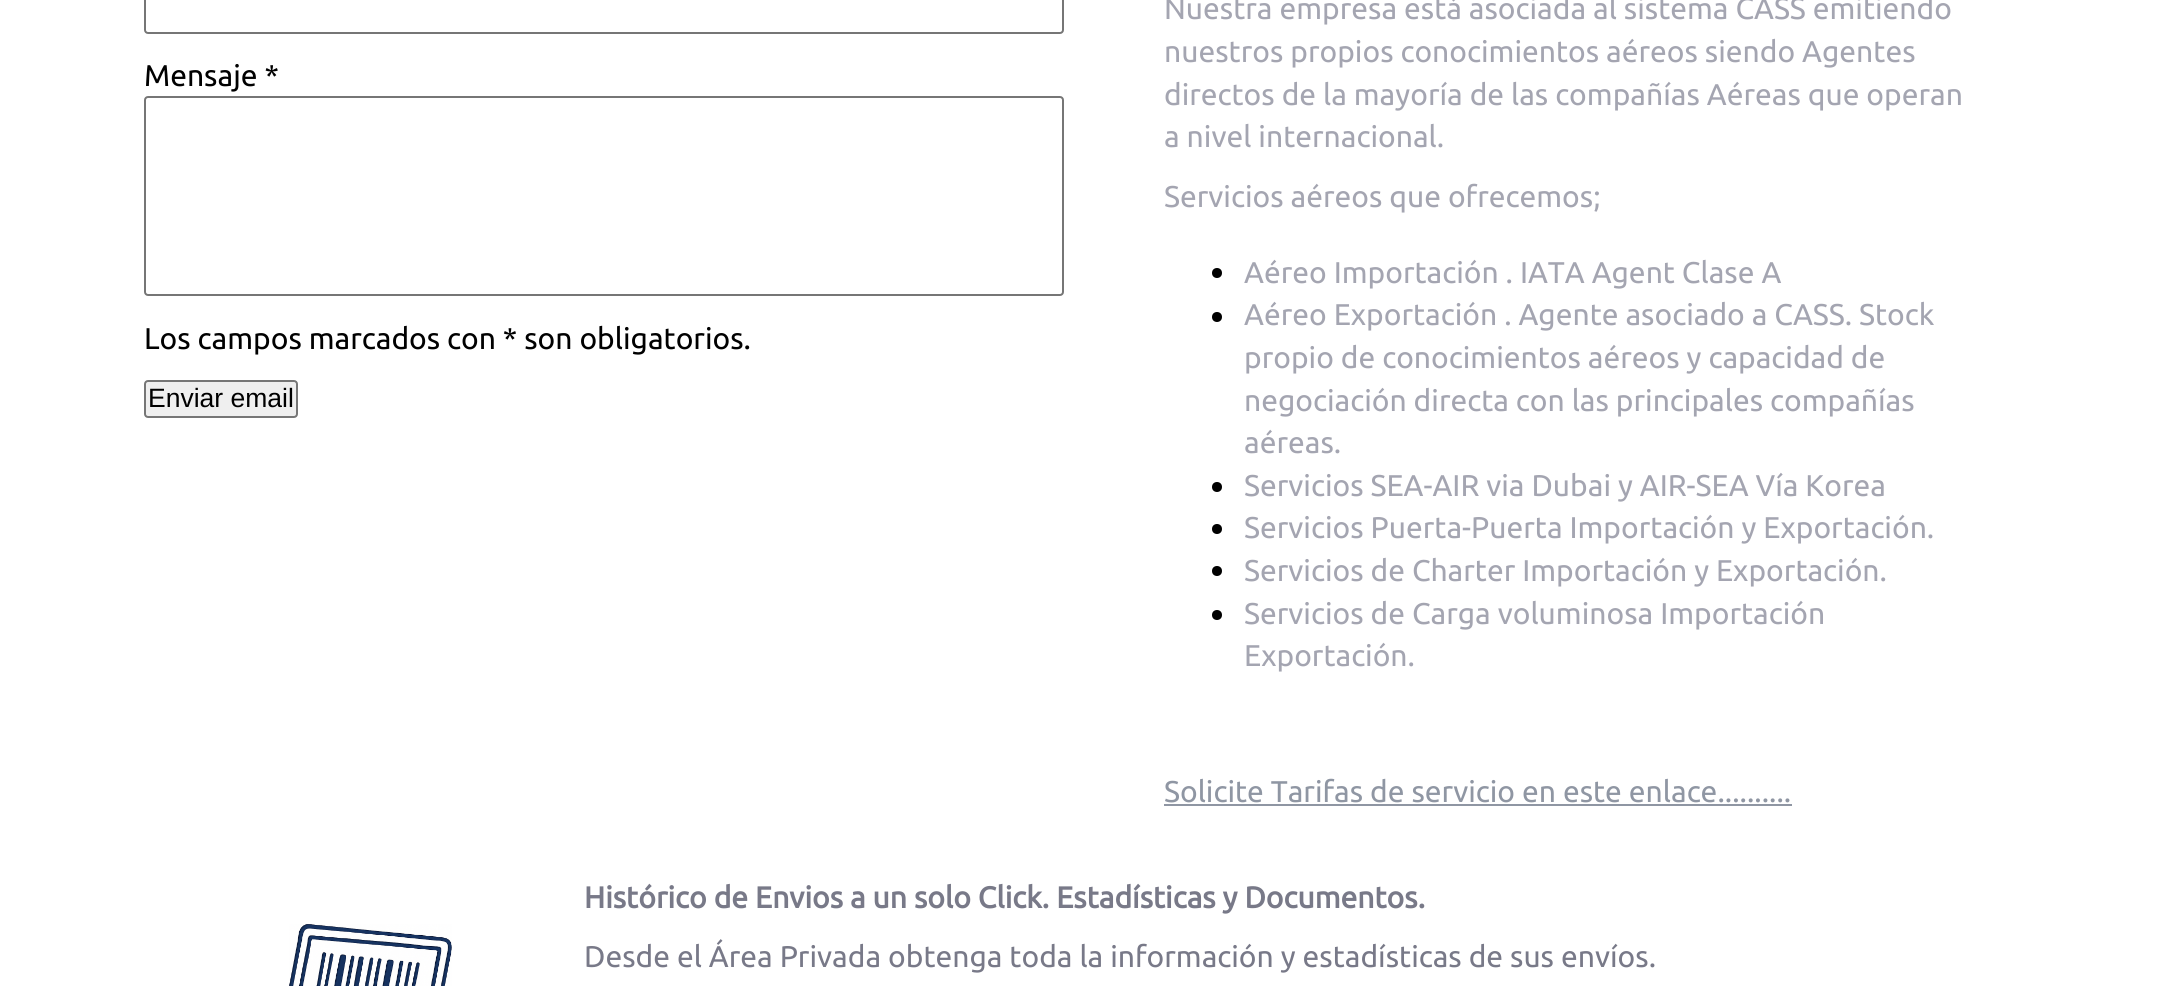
#include <cairo.h>
#include <math.h>
#include <stddef.h>


static void set_color(cairo_t *cr, unsigned color) {
    cairo_set_source_rgb(cr, (color >> 16) / 255.0, (color >> 8 & 255) / 255.0, (color & 255) / 255.0);
}

static void draw_text(cairo_t *cr, double x, double y, const char *s, const char *family, double size, int italic, int bold, unsigned color) {
    cairo_select_font_face(cr, family, italic ? CAIRO_FONT_SLANT_ITALIC : CAIRO_FONT_SLANT_NORMAL,
        bold ? CAIRO_FONT_WEIGHT_BOLD : CAIRO_FONT_WEIGHT_NORMAL);
    cairo_set_font_size(cr, size);
    set_color(cr, color);
    cairo_move_to(cr, x, y);
    cairo_show_text(cr, s);
}

static void fill_rect(cairo_t *cr, double x, double y, double w, double h, unsigned color) {
    set_color(cr, color);
    cairo_rectangle(cr, x, y, w, h);
    cairo_fill(cr);
}

static void rounded_rect(cairo_t *cr, double x, double y, double w, double h, double r) {
    cairo_new_sub_path(cr);
    cairo_arc(cr, x + w - r, y + h - r, r, 0, M_PI / 2);
    cairo_arc(cr, x + r, y + h - r, r, M_PI / 2, M_PI);
    cairo_arc(cr, x + r, y + r, r, M_PI, 1.5 * M_PI);
    cairo_arc(cr, x + w - r, y + r, r, 1.5 * M_PI, 2 * M_PI);
    cairo_close_path(cr);
}

static void draw_image(cairo_t *cr, const char *path, double x, double y, double w, double h) {
    cairo_surface_t *image = cairo_image_surface_create_from_png(path);
    cairo_save(cr);
    cairo_set_source_surface(cr, image, x, y);
    cairo_rectangle(cr, x, y, w, h);
    cairo_fill(cr);
    cairo_restore(cr);
    cairo_surface_destroy(image);
}

int main(void) {
    cairo_surface_t *surface = cairo_image_surface_create(CAIRO_FORMAT_RGB24, 2168, 986);
    cairo_t *cr = cairo_create(surface);
    cairo_font_options_t *options = cairo_font_options_create();
    cairo_font_options_set_hint_metrics(options, CAIRO_HINT_METRICS_OFF);
    cairo_font_options_set_hint_style(options, CAIRO_HINT_STYLE_NONE);
    cairo_set_font_options(cr, options);
    cairo_set_miter_limit(cr, 4);
    set_color(cr, 0xFFFFFF);
    cairo_paint(cr);
    rounded_rect(cr, 145, -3, 918, 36, 3);
    set_color(cr, 0x767676);
    cairo_stroke(cr);
    draw_text(cr, 144, 86, "Mensaje *", "Ubuntu", 30, 0, 0, 0x000000);
    rounded_rect(cr, 145, 97, 918, 198, 3);
    set_color(cr, 0x767676);
    cairo_stroke(cr);
    draw_text(cr, 144, 349, "Los campos marcados con * son obligatorios.", "Ubuntu", 30, 0, 0, 0x000000);
    set_color(cr, 0xEFEFEF);
    rounded_rect(cr, 145, 381, 152, 36, 3);
    cairo_fill_preserve(cr);
    set_color(cr, 0x767676);
    cairo_stroke(cr);
    draw_text(cr, 148, 407, "Enviar email", "Liberation Sans", 26.5, 0, 0, 0x000000);
    draw_text(cr, 1164, 19, "Nuestra empresa está asociada al sistema CASS emitiendo", "Ubuntu", 30, 0, 0, 0xA4A5B1);
    draw_text(cr, 1164, 62, "nuestros propios conocimientos aéreos siendo Agentes", "Ubuntu", 30, 0, 0, 0xA4A5B1);
    draw_text(cr, 1164, 105, "directos de la mayoría de las compañías Aéreas que operan", "Ubuntu", 30, 0, 0, 0xA4A5B1);
    draw_text(cr, 1164, 147, "a nivel internacional.", "Ubuntu", 30, 0, 0, 0xA4A5B1);
    draw_text(cr, 1164, 207, "Servicios aéreos que ofrecemos;", "Ubuntu", 30, 0, 0, 0xA4A5B1);
    set_color(cr, 0x000000);
    cairo_new_path(cr);
    cairo_arc(cr, 1217, 273, 5, 0, 2 * M_PI);
    cairo_fill(cr);
    draw_text(cr, 1244, 283, "Aéreo Importación . IATA Agent Clase A", "Ubuntu", 30, 0, 0, 0xA4A5B1);
    set_color(cr, 0x000000);
    cairo_new_path(cr);
    cairo_arc(cr, 1217, 317, 5, 0, 2 * M_PI);
    cairo_fill(cr);
    draw_text(cr, 1244, 325, "Aéreo Exportación . Agente asociado a CASS. Stock", "Ubuntu", 30, 0, 0, 0xA4A5B1);
    draw_text(cr, 1244, 368, "propio de conocimientos aéreos y capacidad de", "Ubuntu", 30, 0, 0, 0xA4A5B1);
    draw_text(cr, 1244, 411, "negociación directa con las principales compañías", "Ubuntu", 30, 0, 0, 0xA4A5B1);
    draw_text(cr, 1244, 453, "aéreas.", "Ubuntu", 30, 0, 0, 0xA4A5B1);
    set_color(cr, 0x000000);
    cairo_new_path(cr);
    cairo_arc(cr, 1217, 487, 5, 0, 2 * M_PI);
    cairo_fill(cr);
    draw_text(cr, 1244, 496, "Servicios SEA-AIR via Dubai y AIR-SEA Vía Korea", "Ubuntu", 30, 0, 0, 0xA4A5B1);
    set_color(cr, 0x000000);
    cairo_new_path(cr);
    cairo_arc(cr, 1217, 529, 5, 0, 2 * M_PI);
    cairo_fill(cr);
    draw_text(cr, 1244, 538, "Servicios Puerta-Puerta Importación y Exportación.", "Ubuntu", 30, 0, 0, 0xA4A5B1);
    set_color(cr, 0x000000);
    cairo_new_path(cr);
    cairo_arc(cr, 1217, 571, 5, 0, 2 * M_PI);
    cairo_fill(cr);
    draw_text(cr, 1244, 581, "Servicios de Charter Importación y Exportación.", "Ubuntu", 30, 0, 0, 0xA4A5B1);
    set_color(cr, 0x000000);
    cairo_new_path(cr);
    cairo_arc(cr, 1217, 615, 5, 0, 2 * M_PI);
    cairo_fill(cr);
    draw_text(cr, 1244, 624, "Servicios de Carga voluminosa Importación", "Ubuntu", 30, 0, 0, 0xA4A5B1);
    draw_text(cr, 1244, 666, "Exportación.", "Ubuntu", 30, 0, 0, 0xA4A5B1);
    draw_text(cr, 1164, 802, "Solicite Tarifas de servicio en este enlace..........", "Ubuntu", 30, 0, 0, 0x8F96A3);
    fill_rect(cr, 1164, 804, 628, 2, 0x8F96A3);
    draw_text(cr, 584, 908, "Histórico de Envios a un solo Click. Estadísticas y Documentos.", "Ubuntu", 30, 0, 1, 0x787988);
    draw_image(cr, "assets/img1.png", 289, 924, 163, 62);
    draw_text(cr, 584, 967, "Desde el Área Privada obtenga toda la información y estadísticas de sus envíos.", "Ubuntu", 30, 0, 0, 0x787988);
    cairo_surface_write_to_png(surface, "output.png");
    cairo_font_options_destroy(options);
    cairo_destroy(cr);
    cairo_surface_destroy(surface);
    return 0;
}
